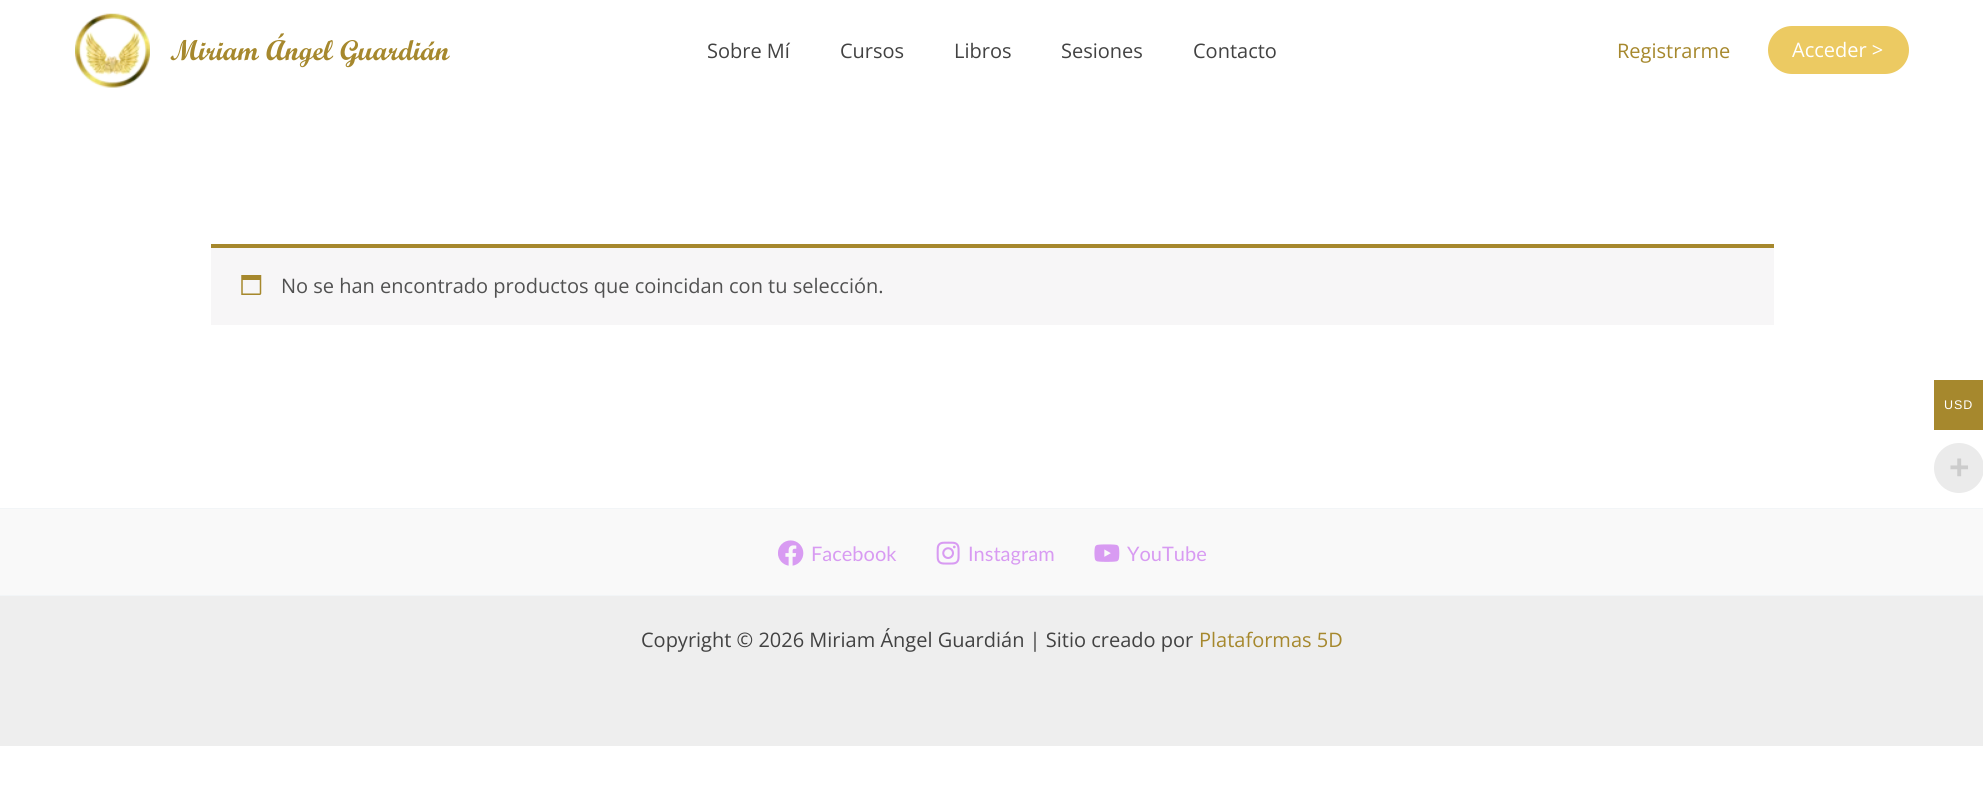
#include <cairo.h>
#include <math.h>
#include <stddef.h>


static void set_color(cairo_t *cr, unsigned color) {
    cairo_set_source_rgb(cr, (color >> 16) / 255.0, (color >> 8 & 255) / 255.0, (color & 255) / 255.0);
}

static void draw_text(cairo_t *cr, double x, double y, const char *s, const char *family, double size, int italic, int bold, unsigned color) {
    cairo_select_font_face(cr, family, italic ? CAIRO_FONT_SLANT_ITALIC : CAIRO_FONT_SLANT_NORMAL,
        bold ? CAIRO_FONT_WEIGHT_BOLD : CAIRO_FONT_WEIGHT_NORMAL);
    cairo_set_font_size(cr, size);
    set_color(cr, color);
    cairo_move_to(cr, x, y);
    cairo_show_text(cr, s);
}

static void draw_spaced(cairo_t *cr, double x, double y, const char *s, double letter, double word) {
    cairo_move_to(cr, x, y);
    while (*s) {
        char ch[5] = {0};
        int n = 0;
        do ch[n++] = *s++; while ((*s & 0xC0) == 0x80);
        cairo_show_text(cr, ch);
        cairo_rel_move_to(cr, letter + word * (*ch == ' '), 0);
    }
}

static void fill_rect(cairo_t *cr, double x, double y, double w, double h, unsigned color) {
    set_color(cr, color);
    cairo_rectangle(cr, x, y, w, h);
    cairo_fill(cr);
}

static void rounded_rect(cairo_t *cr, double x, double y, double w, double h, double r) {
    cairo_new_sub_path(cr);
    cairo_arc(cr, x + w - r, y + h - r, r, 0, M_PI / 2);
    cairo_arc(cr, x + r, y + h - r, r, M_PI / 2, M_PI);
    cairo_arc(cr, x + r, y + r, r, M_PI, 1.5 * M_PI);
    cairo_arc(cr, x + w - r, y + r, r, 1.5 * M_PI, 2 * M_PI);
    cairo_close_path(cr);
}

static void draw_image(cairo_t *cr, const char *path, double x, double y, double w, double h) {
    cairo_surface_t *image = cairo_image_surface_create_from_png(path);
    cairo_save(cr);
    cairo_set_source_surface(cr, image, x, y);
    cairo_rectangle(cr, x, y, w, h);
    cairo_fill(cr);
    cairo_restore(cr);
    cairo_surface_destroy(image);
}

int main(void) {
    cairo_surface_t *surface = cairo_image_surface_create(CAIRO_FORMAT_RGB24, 1983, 805);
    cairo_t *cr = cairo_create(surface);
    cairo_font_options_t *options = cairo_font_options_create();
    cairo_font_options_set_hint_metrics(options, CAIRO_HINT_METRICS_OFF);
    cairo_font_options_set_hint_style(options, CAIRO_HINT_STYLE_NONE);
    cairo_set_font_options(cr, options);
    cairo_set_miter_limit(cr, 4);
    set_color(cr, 0xFFFFFF);
    cairo_paint(cr);
    draw_image(cr, "assets/img1.png", 75, 13, 75, 75);
    draw_text(cr, 170, 60, "Miriam Ángel Guardián", "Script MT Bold", 28.75, 0, 1, 0xA6882D);
    draw_text(cr, 707, 58, "Sobre Mí", "Open Sans", 20, 0, 0, 0x424242);
    draw_text(cr, 840, 58, "Cursos", "Open Sans", 20, 0, 0, 0x424242);
    draw_text(cr, 954, 58, "Libros", "Open Sans", 20, 0, 0, 0x424242);
    draw_text(cr, 1061, 58, "Sesiones", "Open Sans", 20, 0, 0, 0x424242);
    draw_text(cr, 1193, 58, "Contacto", "Open Sans", 20, 0, 0, 0x424242);
    draw_text(cr, 1617, 58, "Registrarme", "Open Sans", 20, 0, 0, 0xA6882D);
    set_color(cr, 0xECCA62);
    rounded_rect(cr, 1768, 26, 141, 48, 24);
    cairo_fill(cr);
    draw_text(cr, 1792, 57, "Acceder >", "Open Sans", 20, 0, 0, 0xFFFFFF);
    fill_rect(cr, 211, 248, 1563, 77, 0xF7F6F7);
    fill_rect(cr, 211, 244, 1563, 4, 0xA6882D);
    draw_image(cr, "assets/img2.png", 241, 275, 21, 20);
    draw_text(cr, 281, 293, "No se han encontrado productos que coincidan con tu selección.", "Open Sans", 20, 0, 0, 0x515151);
    fill_rect(cr, 0, 509, 1983, 86, 0xF9F9F9);
    fill_rect(cr, 0, 508, 1983, 1, 0xF2F5F7);
    draw_image(cr, "assets/img3.png", 778, 540, 26, 26);
    draw_text(cr, 811, 561, "Facebook", "Lato", 20, 0, 0, 0xD89BF2);
    draw_image(cr, "assets/img4.png", 936, 541, 24, 24);
    draw_text(cr, 968, 561, "Instagram", "Lato", 20, 0, 0, 0xD89BF2);
    draw_image(cr, "assets/img5.png", 1094, 544, 26, 18);
    draw_text(cr, 1127, 561, "YouTube", "Lato", 20, 0, 0, 0xD89BF2);
    fill_rect(cr, 0, 596, 1983, 150, 0xEEEEEE);
    fill_rect(cr, 0, 595, 1983, 1, 0xF2F5F7);
    draw_text(cr, 641, 647, "Copyright © 2026 Miriam Ángel Guardián | Sitio creado por", "Open Sans", 20, 0, 0, 0x424242);
    draw_text(cr, 1199, 647, "Plataformas 5D", "Open Sans", 20, 0, 0, 0xA6882D);
    fill_rect(cr, 1934, 380, 49, 50, 0xA6882D);
    cairo_select_font_face(cr, "Liberation Sans", CAIRO_FONT_SLANT_NORMAL, CAIRO_FONT_WEIGHT_NORMAL);
    cairo_set_font_size(cr, 12.5);
    set_color(cr, 0xFFFFFF);
    draw_spaced(cr, 1944, 409, "USD", 1, 0);
    set_color(cr, 0xEBEBEB);
    cairo_new_path(cr);
    cairo_arc(cr, 1959, 468, 25, 0, 2 * M_PI);
    cairo_fill(cr);
    draw_text(cr, 1949, 479, "+", "Liberation Sans", 35, 0, 1, 0xCCCCCC);
    cairo_surface_write_to_png(surface, "output.png");
    cairo_font_options_destroy(options);
    cairo_destroy(cr);
    cairo_surface_destroy(surface);
    return 0;
}
